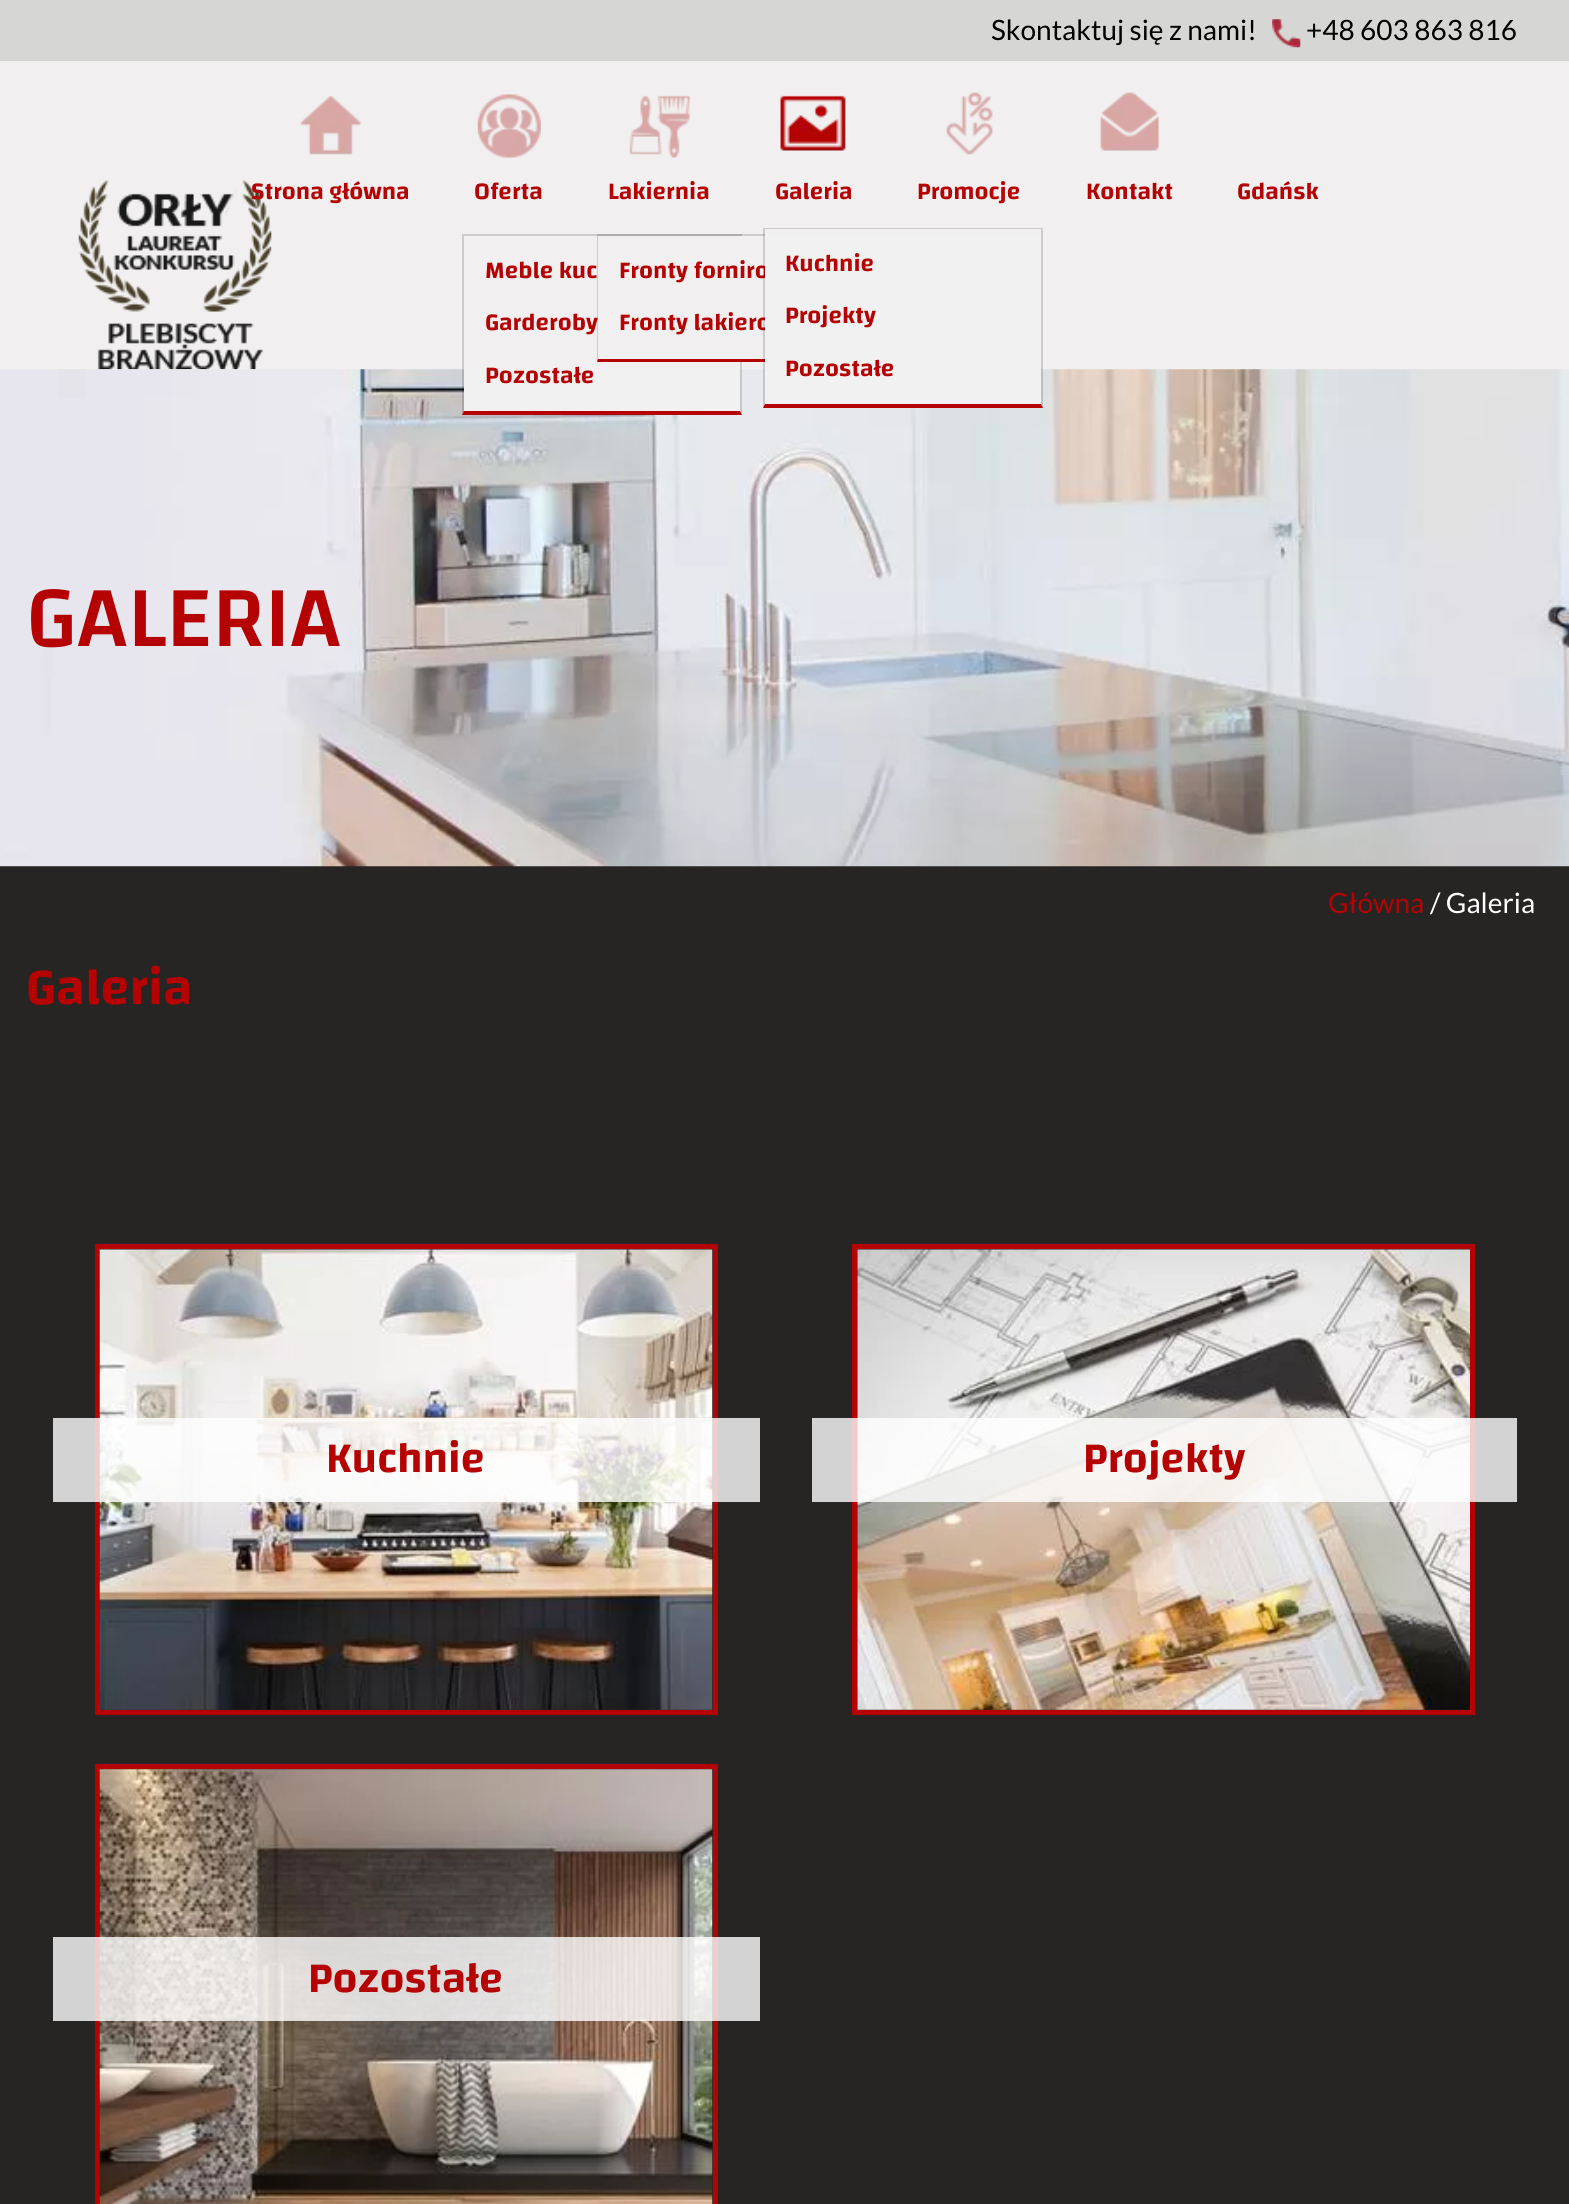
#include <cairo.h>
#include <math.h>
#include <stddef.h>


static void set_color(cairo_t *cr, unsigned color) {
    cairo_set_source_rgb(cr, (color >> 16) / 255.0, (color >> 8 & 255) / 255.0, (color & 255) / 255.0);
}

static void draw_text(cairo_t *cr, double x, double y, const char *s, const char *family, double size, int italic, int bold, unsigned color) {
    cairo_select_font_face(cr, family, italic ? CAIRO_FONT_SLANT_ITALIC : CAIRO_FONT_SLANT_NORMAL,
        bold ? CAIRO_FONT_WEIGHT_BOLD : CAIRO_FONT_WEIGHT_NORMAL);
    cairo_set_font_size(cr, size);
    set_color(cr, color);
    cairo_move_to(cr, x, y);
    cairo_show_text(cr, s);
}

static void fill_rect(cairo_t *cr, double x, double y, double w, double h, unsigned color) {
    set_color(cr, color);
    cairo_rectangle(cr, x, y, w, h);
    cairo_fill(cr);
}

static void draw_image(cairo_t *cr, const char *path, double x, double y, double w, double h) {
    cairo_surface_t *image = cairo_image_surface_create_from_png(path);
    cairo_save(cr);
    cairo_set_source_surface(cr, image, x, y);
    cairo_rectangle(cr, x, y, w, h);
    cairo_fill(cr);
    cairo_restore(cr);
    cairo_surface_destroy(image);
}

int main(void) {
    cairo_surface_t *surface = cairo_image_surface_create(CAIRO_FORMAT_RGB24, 1569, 2204);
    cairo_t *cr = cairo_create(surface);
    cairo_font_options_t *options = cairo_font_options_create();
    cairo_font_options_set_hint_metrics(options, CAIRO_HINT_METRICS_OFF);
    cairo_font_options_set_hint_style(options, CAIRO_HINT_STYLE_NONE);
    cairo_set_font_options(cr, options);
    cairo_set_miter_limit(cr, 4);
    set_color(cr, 0x272424);
    cairo_paint(cr);
    fill_rect(cr, 0, 61, 1569, 309, 0xF1EFEF);
    fill_rect(cr, 0, 0, 1569, 61, 0xD6D6D5);
    draw_text(cr, 991, 40, "Skontaktuj się z nami!", "Lato", 28, 0, 0, 0x000000);
    draw_image(cr, "assets/img1.png", 1272, 19, 29, 29);
    draw_text(cr, 1306, 40, "+48 603 863 816", "Lato", 28, 0, 0, 0x000000);
    draw_image(cr, "assets/img2.png", 78, 180, 194, 190);
    draw_image(cr, "assets/img3.png", 300, 96, 61, 59);
    draw_text(cr, 251, 199, "Strona główna", "Changa SemiBold", 24.5, 0, 0, 0xB50203);
    draw_image(cr, "assets/img4.png", 477, 94, 64, 64);
    draw_text(cr, 474, 199, "Oferta", "Changa SemiBold", 24.5, 0, 0, 0xB50203);
    draw_image(cr, "assets/img9.png", 0, 369, 1569, 498);
    fill_rect(cr, 464, 369, 276, 42, 0xF1F1F1);
    set_color(cr, 0xCDCBCB);
    cairo_new_path(cr);
    cairo_move_to(cr, 462, 234);
    cairo_line_to(cr, 742, 234);
    cairo_line_to(cr, 740, 236);
    cairo_line_to(cr, 464, 236);
    cairo_close_path(cr);
    cairo_fill(cr);
    cairo_set_source_rgba(cr, 0, 0, 0, 0.15);
    cairo_new_path(cr);
    cairo_move_to(cr, 742, 234);
    cairo_line_to(cr, 742, 415);
    cairo_line_to(cr, 740, 411);
    cairo_line_to(cr, 740, 236);
    cairo_close_path(cr);
    cairo_fill(cr);
    set_color(cr, 0xB50203);
    cairo_new_path(cr);
    cairo_move_to(cr, 742, 415);
    cairo_line_to(cr, 462, 415);
    cairo_line_to(cr, 464, 411);
    cairo_line_to(cr, 740, 411);
    cairo_close_path(cr);
    cairo_fill(cr);
    cairo_set_source_rgba(cr, 0, 0, 0, 0.15);
    cairo_new_path(cr);
    cairo_move_to(cr, 462, 415);
    cairo_line_to(cr, 462, 234);
    cairo_line_to(cr, 464, 236);
    cairo_line_to(cr, 464, 411);
    cairo_close_path(cr);
    cairo_fill(cr);
    draw_text(cr, 485, 278, "Meble kuc", "Changa SemiBold", 24.5, 0, 0, 0xB50203);
    draw_text(cr, 485, 330, "Garderoby", "Changa SemiBold", 24.5, 0, 0, 0xB50203);
    draw_text(cr, 485, 383, "Pozostałe", "Changa SemiBold", 24.5, 0, 0, 0xB50203);
    draw_image(cr, "assets/img5.png", 629, 95, 61, 63);
    draw_text(cr, 608, 199, "Lakiernia", "Changa SemiBold", 24.5, 0, 0, 0xB50203);
    fill_rect(cr, 740, 236, 2, 123, 0xF1F1F1);
    cairo_set_source_rgba(cr, 0, 0, 0, 0.15);
    cairo_new_path(cr);
    cairo_move_to(cr, 597, 234);
    cairo_line_to(cr, 877, 234);
    cairo_line_to(cr, 875, 236);
    cairo_line_to(cr, 598, 236);
    cairo_close_path(cr);
    cairo_fill(cr);
    set_color(cr, 0xB50203);
    cairo_new_path(cr);
    cairo_move_to(cr, 877, 362);
    cairo_line_to(cr, 597, 362);
    cairo_line_to(cr, 598, 359);
    cairo_line_to(cr, 875, 359);
    cairo_close_path(cr);
    cairo_fill(cr);
    cairo_set_source_rgba(cr, 0, 0, 0, 0.15);
    cairo_new_path(cr);
    cairo_move_to(cr, 597, 362);
    cairo_line_to(cr, 597, 234);
    cairo_line_to(cr, 598, 236);
    cairo_line_to(cr, 598, 359);
    cairo_close_path(cr);
    cairo_fill(cr);
    draw_text(cr, 619, 278, "Fronty forniro", "Changa SemiBold", 24.5, 0, 0, 0xB50203);
    draw_text(cr, 619, 330, "Fronty lakiero", "Changa SemiBold", 24.5, 0, 0, 0xB50203);
    draw_image(cr, "assets/img6.png", 780, 95, 66, 56);
    draw_text(cr, 775, 199, "Galeria", "Changa SemiBold", 24.5, 0, 0, 0xB50203);
    fill_rect(cr, 765, 234, 276, 170, 0xF1F1F1);
    set_color(cr, 0xCDCBCB);
    cairo_new_path(cr);
    cairo_move_to(cr, 763, 228);
    cairo_line_to(cr, 1043, 228);
    cairo_line_to(cr, 1041, 229);
    cairo_line_to(cr, 765, 229);
    cairo_close_path(cr);
    cairo_fill(cr);
    cairo_set_source_rgba(cr, 0, 0, 0, 0.15);
    cairo_new_path(cr);
    cairo_move_to(cr, 1043, 228);
    cairo_line_to(cr, 1043, 408);
    cairo_line_to(cr, 1041, 404);
    cairo_line_to(cr, 1041, 229);
    cairo_close_path(cr);
    cairo_fill(cr);
    set_color(cr, 0xB50203);
    cairo_new_path(cr);
    cairo_move_to(cr, 1043, 408);
    cairo_line_to(cr, 763, 408);
    cairo_line_to(cr, 765, 404);
    cairo_line_to(cr, 1041, 404);
    cairo_close_path(cr);
    cairo_fill(cr);
    cairo_set_source_rgba(cr, 0, 0, 0, 0.15);
    cairo_new_path(cr);
    cairo_move_to(cr, 763, 408);
    cairo_line_to(cr, 763, 228);
    cairo_line_to(cr, 765, 229);
    cairo_line_to(cr, 765, 404);
    cairo_close_path(cr);
    cairo_fill(cr);
    draw_text(cr, 785, 271, "Kuchnie", "Changa SemiBold", 24.5, 0, 0, 0xB50203);
    draw_text(cr, 785, 323, "Projekty", "Changa SemiBold", 24.5, 0, 0, 0xB50203);
    draw_text(cr, 785, 376, "Pozostałe", "Changa SemiBold", 24.5, 0, 0, 0xB50203);
    draw_image(cr, "assets/img7.png", 946, 92, 47, 63);
    draw_text(cr, 917, 199, "Promocje", "Changa SemiBold", 24.5, 0, 0, 0xB50203);
    draw_image(cr, "assets/img8.png", 1100, 92, 59, 59);
    draw_text(cr, 1086, 199, "Kontakt", "Changa SemiBold", 24.5, 0, 0, 0xB50203);
    draw_text(cr, 1237, 199, "Gdańsk", "Changa SemiBold", 24.5, 0, 0, 0xB50203);
    draw_text(cr, 26, 646, "GALERIA", "Changa Medium", 89, 0, 0, 0xB50203);
    draw_text(cr, 1328, 913, "Główna", "Lato", 28, 0, 0, 0xB50203);
    draw_text(cr, 1430, 913, "/ Galeria", "Lato", 28, 0, 0, 0xFFFFFF);
    draw_text(cr, 26, 1004, "Galeria", "Changa SemiBold", 52.5, 0, 0, 0xB50203);
    cairo_rectangle(cr, 97.5, 1246.5, 618, 466);
    cairo_set_line_width(cr, 5);
    cairo_stroke(cr);
    draw_image(cr, "assets/img10.png", 99, 1249, 614, 461);
    cairo_set_source_rgba(cr, 1, 1, 1, 0.8);
    cairo_rectangle(cr, 53, 1418, 707, 84);
    cairo_fill(cr);
    draw_text(cr, 326, 1472, "Kuchnie", "Changa SemiBold", 43.75, 0, 0, 0xB50203);
    cairo_rectangle(cr, 854.5, 1246.5, 618, 466);
    cairo_stroke(cr);
    draw_image(cr, "assets/img11.png", 857, 1249, 613, 461);
    cairo_set_source_rgba(cr, 1, 1, 1, 0.8);
    cairo_rectangle(cr, 812, 1418, 705, 84);
    cairo_fill(cr);
    draw_text(cr, 1083, 1472, "Projekty", "Changa SemiBold", 43.75, 0, 0, 0xB50203);
    cairo_rectangle(cr, 97.5, 1766.5, 618, 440);
    cairo_stroke(cr);
    draw_image(cr, "assets/img12.png", 99, 1769, 614, 435);
    cairo_set_source_rgba(cr, 1, 1, 1, 0.8);
    cairo_rectangle(cr, 53, 1937, 707, 84);
    cairo_fill(cr);
    draw_text(cr, 308, 1992, "Pozostałe", "Changa SemiBold", 43.75, 0, 0, 0xB50203);
    cairo_surface_write_to_png(surface, "output.png");
    cairo_font_options_destroy(options);
    cairo_destroy(cr);
    cairo_surface_destroy(surface);
    return 0;
}
